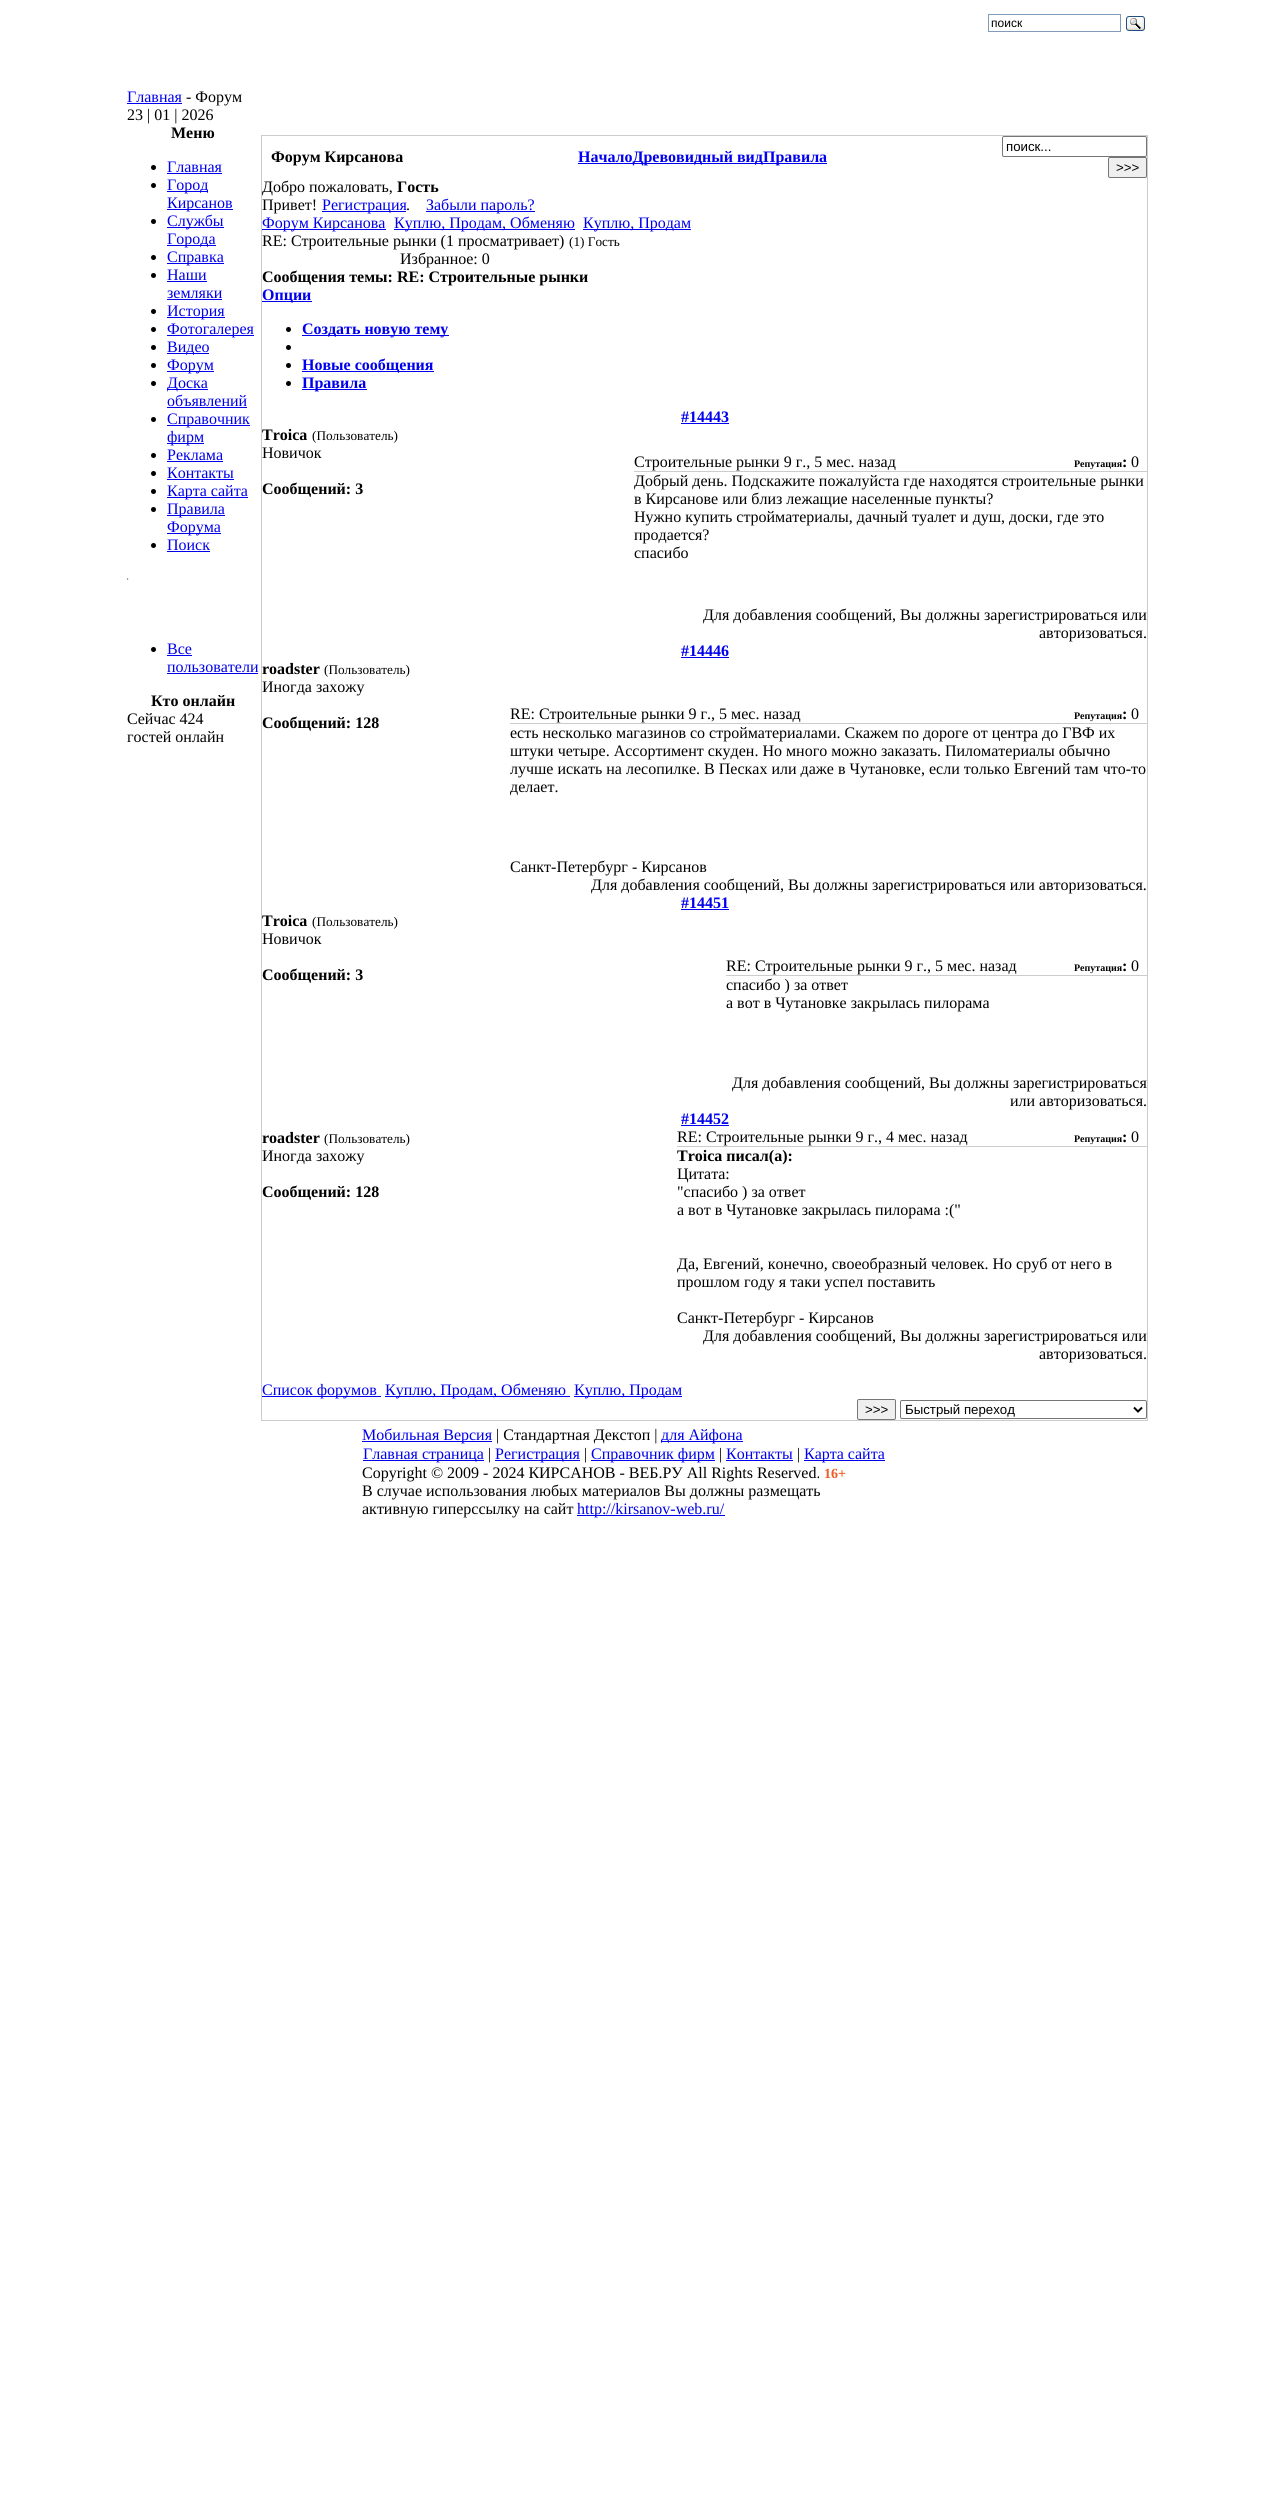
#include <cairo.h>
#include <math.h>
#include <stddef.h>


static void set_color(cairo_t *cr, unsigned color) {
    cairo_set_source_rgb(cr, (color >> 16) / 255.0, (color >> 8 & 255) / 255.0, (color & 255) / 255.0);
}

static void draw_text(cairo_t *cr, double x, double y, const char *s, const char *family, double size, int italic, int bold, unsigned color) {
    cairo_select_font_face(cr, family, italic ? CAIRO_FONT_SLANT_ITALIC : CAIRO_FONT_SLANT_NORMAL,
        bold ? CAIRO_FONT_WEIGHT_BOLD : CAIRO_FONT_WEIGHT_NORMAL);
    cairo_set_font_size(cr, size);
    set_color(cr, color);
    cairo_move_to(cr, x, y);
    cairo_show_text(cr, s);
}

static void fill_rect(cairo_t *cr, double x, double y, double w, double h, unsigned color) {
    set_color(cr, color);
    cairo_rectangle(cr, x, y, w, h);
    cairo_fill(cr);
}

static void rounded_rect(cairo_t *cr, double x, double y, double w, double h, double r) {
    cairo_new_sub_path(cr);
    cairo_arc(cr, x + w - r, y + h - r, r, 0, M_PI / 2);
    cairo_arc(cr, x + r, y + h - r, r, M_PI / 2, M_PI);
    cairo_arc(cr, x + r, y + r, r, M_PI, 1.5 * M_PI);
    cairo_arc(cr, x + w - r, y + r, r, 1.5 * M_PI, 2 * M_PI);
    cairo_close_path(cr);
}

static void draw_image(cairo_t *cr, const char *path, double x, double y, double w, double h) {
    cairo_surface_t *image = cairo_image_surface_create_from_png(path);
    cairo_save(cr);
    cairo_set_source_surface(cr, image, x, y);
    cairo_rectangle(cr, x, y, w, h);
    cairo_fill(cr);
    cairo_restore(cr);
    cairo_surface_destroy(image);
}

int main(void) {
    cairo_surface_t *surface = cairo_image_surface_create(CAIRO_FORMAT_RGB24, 1278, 2506);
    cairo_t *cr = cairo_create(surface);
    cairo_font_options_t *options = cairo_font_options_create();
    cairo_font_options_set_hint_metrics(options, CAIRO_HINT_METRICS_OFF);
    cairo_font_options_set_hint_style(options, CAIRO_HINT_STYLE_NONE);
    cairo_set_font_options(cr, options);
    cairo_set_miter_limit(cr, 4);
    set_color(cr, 0xFFFFFF);
    cairo_paint(cr);
    cairo_rectangle(cr, 988.5, 14.5, 132, 17);
    set_color(cr, 0x7F9DB9);
    cairo_set_line_width(cr, 1);
    cairo_stroke(cr);
    draw_text(cr, 991, 27, "поиск", "Liberation Sans", 12, 0, 0, 0x000000);
    draw_image(cr, "assets/img1.png", 1126, 16, 19, 15);
    draw_text(cr, 127, 102, "Главная", "Liberation Serif", 16, 0, 0, 0x0000EE);
    fill_rect(cr, 127, 103, 55, 1, 0x0000EE);
    draw_text(cr, 186, 102, "- Форум", "Liberation Serif", 16, 0, 0, 0x000000);
    draw_text(cr, 127, 120, "23 | 01 | 2026", "Liberation Serif", 16, 0, 0, 0x000000);
    draw_text(cr, 171, 138, "Меню", "Liberation Serif", 16, 0, 1, 0x000000);
    cairo_new_path(cr);
    cairo_arc(cr, 153.5, 167.5, 2.5, 0, 2 * M_PI);
    cairo_fill(cr);
    draw_text(cr, 167, 172, "Главная", "Liberation Serif", 16, 0, 0, 0x0000EE);
    fill_rect(cr, 167, 173, 55, 1, 0x0000EE);
    set_color(cr, 0x000000);
    cairo_new_path(cr);
    cairo_arc(cr, 153.5, 185.5, 2.5, 0, 2 * M_PI);
    cairo_fill(cr);
    fill_rect(cr, 167, 191, 41, 1, 0x0000EE);
    draw_text(cr, 167, 190, "Город", "Liberation Serif", 16, 0, 0, 0x0000EE);
    fill_rect(cr, 167, 209, 66, 1, 0x0000EE);
    draw_text(cr, 167, 208, "Кирсанов", "Liberation Serif", 16, 0, 0, 0x0000EE);
    set_color(cr, 0x000000);
    cairo_new_path(cr);
    cairo_arc(cr, 153.5, 221.5, 2.5, 0, 2 * M_PI);
    cairo_fill(cr);
    fill_rect(cr, 167, 227, 57, 1, 0x0000EE);
    draw_text(cr, 167, 226, "Службы", "Liberation Serif", 16, 0, 0, 0x0000EE);
    fill_rect(cr, 167, 245, 49, 1, 0x0000EE);
    draw_text(cr, 167, 244, "Города", "Liberation Serif", 16, 0, 0, 0x0000EE);
    set_color(cr, 0x000000);
    cairo_new_path(cr);
    cairo_arc(cr, 153.5, 257.5, 2.5, 0, 2 * M_PI);
    cairo_fill(cr);
    fill_rect(cr, 167, 263, 57, 1, 0x0000EE);
    draw_text(cr, 167, 262, "Справка", "Liberation Serif", 16, 0, 0, 0x0000EE);
    set_color(cr, 0x000000);
    cairo_new_path(cr);
    cairo_arc(cr, 153.5, 275.5, 2.5, 0, 2 * M_PI);
    cairo_fill(cr);
    draw_text(cr, 167, 280, "Наши", "Liberation Serif", 16, 0, 0, 0x0000EE);
    fill_rect(cr, 167, 281, 40, 1, 0x0000EE);
    draw_text(cr, 167, 298, "земляки", "Liberation Serif", 16, 0, 0, 0x0000EE);
    fill_rect(cr, 167, 299, 55, 1, 0x0000EE);
    set_color(cr, 0x000000);
    cairo_new_path(cr);
    cairo_arc(cr, 153.5, 311.5, 2.5, 0, 2 * M_PI);
    cairo_fill(cr);
    fill_rect(cr, 167, 317, 58, 1, 0x0000EE);
    draw_text(cr, 167, 316, "История", "Liberation Serif", 16, 0, 0, 0x0000EE);
    set_color(cr, 0x000000);
    cairo_new_path(cr);
    cairo_arc(cr, 153.5, 329.5, 2.5, 0, 2 * M_PI);
    cairo_fill(cr);
    fill_rect(cr, 167, 335, 87, 1, 0x0000EE);
    draw_text(cr, 167, 334, "Фотогалерея", "Liberation Serif", 16, 0, 0, 0x0000EE);
    set_color(cr, 0x000000);
    cairo_new_path(cr);
    cairo_arc(cr, 153.5, 347.5, 2.5, 0, 2 * M_PI);
    cairo_fill(cr);
    fill_rect(cr, 167, 353, 42, 1, 0x0000EE);
    draw_text(cr, 167, 352, "Видео", "Liberation Serif", 16, 0, 0, 0x0000EE);
    set_color(cr, 0x000000);
    cairo_new_path(cr);
    cairo_arc(cr, 153.5, 365.5, 2.5, 0, 2 * M_PI);
    cairo_fill(cr);
    fill_rect(cr, 167, 371, 47, 1, 0x0000EE);
    draw_text(cr, 167, 370, "Форум", "Liberation Serif", 16, 0, 0, 0x0000EE);
    set_color(cr, 0x000000);
    cairo_new_path(cr);
    cairo_arc(cr, 153.5, 383.5, 2.5, 0, 2 * M_PI);
    cairo_fill(cr);
    fill_rect(cr, 167, 389, 41, 1, 0x0000EE);
    draw_text(cr, 167, 388, "Доска", "Liberation Serif", 16, 0, 0, 0x0000EE);
    draw_text(cr, 167, 406, "объявлений", "Liberation Serif", 16, 0, 0, 0x0000EE);
    fill_rect(cr, 167, 407, 80, 1, 0x0000EE);
    set_color(cr, 0x000000);
    cairo_new_path(cr);
    cairo_arc(cr, 153.5, 419.5, 2.5, 0, 2 * M_PI);
    cairo_fill(cr);
    fill_rect(cr, 167, 425, 83, 1, 0x0000EE);
    draw_text(cr, 167, 424, "Справочник", "Liberation Serif", 16, 0, 0, 0x0000EE);
    fill_rect(cr, 167, 443, 37, 1, 0x0000EE);
    draw_text(cr, 167, 442, "фирм", "Liberation Serif", 16, 0, 0, 0x0000EE);
    set_color(cr, 0x000000);
    cairo_new_path(cr);
    cairo_arc(cr, 153.5, 455.5, 2.5, 0, 2 * M_PI);
    cairo_fill(cr);
    draw_text(cr, 167, 460, "Реклама", "Liberation Serif", 16, 0, 0, 0x0000EE);
    fill_rect(cr, 167, 461, 56, 1, 0x0000EE);
    set_color(cr, 0x000000);
    cairo_new_path(cr);
    cairo_arc(cr, 153.5, 473.5, 2.5, 0, 2 * M_PI);
    cairo_fill(cr);
    draw_text(cr, 167, 478, "Контакты", "Liberation Serif", 16, 0, 0, 0x0000EE);
    fill_rect(cr, 167, 479, 67, 1, 0x0000EE);
    set_color(cr, 0x000000);
    cairo_new_path(cr);
    cairo_arc(cr, 153.5, 491.5, 2.5, 0, 2 * M_PI);
    cairo_fill(cr);
    fill_rect(cr, 167, 497, 81, 1, 0x0000EE);
    draw_text(cr, 167, 496, "Карта сайта", "Liberation Serif", 16, 0, 0, 0x0000EE);
    set_color(cr, 0x000000);
    cairo_new_path(cr);
    cairo_arc(cr, 153.5, 509.5, 2.5, 0, 2 * M_PI);
    cairo_fill(cr);
    fill_rect(cr, 167, 515, 58, 1, 0x0000EE);
    draw_text(cr, 167, 514, "Правила", "Liberation Serif", 16, 0, 0, 0x0000EE);
    fill_rect(cr, 167, 533, 54, 1, 0x0000EE);
    draw_text(cr, 167, 532, "Форума", "Liberation Serif", 16, 0, 0, 0x0000EE);
    set_color(cr, 0x000000);
    cairo_new_path(cr);
    cairo_arc(cr, 153.5, 545.5, 2.5, 0, 2 * M_PI);
    cairo_fill(cr);
    draw_text(cr, 167, 550, "Поиск", "Liberation Serif", 16, 0, 0, 0x0000EE);
    fill_rect(cr, 167, 551, 43, 1, 0x0000EE);
    fill_rect(cr, 128, 578, 1, 2, 0xEEEEEE);
    fill_rect(cr, 127, 579, 2, 1, 0xEEEEEE);
    fill_rect(cr, 127, 578, 1, 2, 0x9F9F9F);
    set_color(cr, 0x000000);
    cairo_new_path(cr);
    cairo_arc(cr, 153.5, 649.5, 2.5, 0, 2 * M_PI);
    cairo_fill(cr);
    draw_text(cr, 167, 654, "Все", "Liberation Serif", 16, 0, 0, 0x0000EE);
    fill_rect(cr, 167, 655, 25, 1, 0x0000EE);
    draw_text(cr, 167, 672, "пользователи", "Liberation Serif", 16, 0, 0, 0x0000EE);
    fill_rect(cr, 167, 673, 91, 1, 0x0000EE);
    draw_text(cr, 151, 706, "Кто онлайн", "Liberation Serif", 16, 0, 1, 0x000000);
    draw_text(cr, 127, 724, "Сейчас 424", "Liberation Serif", 16, 0, 0, 0x000000);
    draw_text(cr, 127, 742, "гостей онлайн", "Liberation Serif", 16, 0, 0, 0x000000);
    cairo_rectangle(cr, 261.5, 135.5, 886, 1285);
    set_color(cr, 0xCCCCCC);
    cairo_stroke(cr);
    draw_text(cr, 271, 162, "Форум Кирсанова", "Liberation Serif", 16, 0, 1, 0x000000);
    fill_rect(cr, 578, 163, 249, 1, 0x0000EE);
    draw_text(cr, 578, 162, "НачалоДревовидный видПравила", "Liberation Serif", 16, 0, 1, 0x0000EE);
    rounded_rect(cr, 1002.5, 136.5, 144, 20, 1.5);
    set_color(cr, 0x767676);
    cairo_stroke(cr);
    draw_text(cr, 1006, 151, "поиск...", "Liberation Sans", 13.25, 0, 0, 0x000000);
    set_color(cr, 0xEFEFEF);
    rounded_rect(cr, 1108.5, 157.5, 38, 20, 1.5);
    cairo_fill_preserve(cr);
    set_color(cr, 0x767676);
    cairo_stroke(cr);
    draw_text(cr, 1116, 172, ">>>", "Liberation Sans", 13.25, 0, 0, 0x000000);
    draw_text(cr, 262, 192, "Добро пожаловать,", "Liberation Serif", 16, 0, 0, 0x000000);
    draw_text(cr, 397, 192, "Гость", "Liberation Serif", 16, 0, 1, 0x000000);
    draw_text(cr, 262, 210, "Привет!", "Liberation Serif", 16, 0, 0, 0x000000);
    fill_rect(cr, 322, 211, 84, 1, 0x0000EE);
    draw_text(cr, 322, 210, "Регистрация", "Liberation Serif", 16, 0, 0, 0x0000EE);
    draw_text(cr, 406, 210, ".", "Liberation Serif", 16, 0, 0, 0x000000);
    fill_rect(cr, 426, 211, 109, 1, 0x0000EE);
    draw_text(cr, 426, 210, "Забыли пароль?", "Liberation Serif", 16, 0, 0, 0x0000EE);
    fill_rect(cr, 262, 229, 124, 1, 0x0000EE);
    draw_text(cr, 262, 228, "Форум Кирсанова", "Liberation Serif", 16, 0, 0, 0x0000EE);
    fill_rect(cr, 394, 229, 181, 1, 0x0000EE);
    draw_text(cr, 394, 228, "Куплю, Продам, Обменяю", "Liberation Serif", 16, 0, 0, 0x0000EE);
    fill_rect(cr, 583, 229, 108, 1, 0x0000EE);
    draw_text(cr, 583, 228, "Куплю, Продам", "Liberation Serif", 16, 0, 0, 0x0000EE);
    draw_text(cr, 262, 246, "RE: Строительные рынки (1 просматривает)", "Liberation Serif", 16, 0, 0, 0x000000);
    draw_text(cr, 569, 246, "(1) Гость", "Liberation Serif", 13.25, 0, 0, 0x000000);
    draw_text(cr, 400, 264, "Избранное: 0", "Liberation Serif", 16, 0, 0, 0x000000);
    draw_text(cr, 262, 282, "Сообщения темы: RE: Строительные рынки", "Liberation Serif", 16, 0, 1, 0x000000);
    fill_rect(cr, 262, 301, 50, 1, 0x0000EE);
    draw_text(cr, 262, 300, "Опции", "Liberation Serif", 16, 0, 1, 0x0000EE);
    set_color(cr, 0x000000);
    cairo_new_path(cr);
    cairo_arc(cr, 288.5, 329.5, 2.5, 0, 2 * M_PI);
    cairo_fill(cr);
    fill_rect(cr, 302, 335, 147, 1, 0x0000EE);
    draw_text(cr, 302, 334, "Создать новую тему", "Liberation Serif", 16, 0, 1, 0x0000EE);
    set_color(cr, 0x000000);
    cairo_new_path(cr);
    cairo_arc(cr, 288.5, 347.5, 2.5, 0, 2 * M_PI);
    cairo_fill(cr);
    cairo_arc(cr, 288.5, 365.5, 2.5, 0, 2 * M_PI);
    cairo_fill(cr);
    fill_rect(cr, 302, 371, 132, 1, 0x0000EE);
    draw_text(cr, 302, 370, "Новые сообщения", "Liberation Serif", 16, 0, 1, 0x0000EE);
    set_color(cr, 0x000000);
    cairo_new_path(cr);
    cairo_arc(cr, 288.5, 383.5, 2.5, 0, 2 * M_PI);
    cairo_fill(cr);
    fill_rect(cr, 302, 389, 65, 1, 0x0000EE);
    draw_text(cr, 302, 388, "Правила", "Liberation Serif", 16, 0, 1, 0x0000EE);
    draw_text(cr, 681, 422, "#14443", "Liberation Serif", 16, 0, 1, 0x0000EE);
    fill_rect(cr, 681, 423, 48, 1, 0x0000EE);
    draw_text(cr, 262, 440, "Troica", "Liberation Serif", 16, 0, 1, 0x000000);
    draw_text(cr, 312, 440, "(Пользователь)", "Liberation Serif", 13.25, 0, 0, 0x000000);
    draw_text(cr, 262, 458, "Новичок", "Liberation Serif", 16, 0, 0, 0x000000);
    draw_text(cr, 262, 494, "Сообщений: 3", "Liberation Serif", 16, 0, 1, 0x000000);
    fill_rect(cr, 634, 471, 513, 1, 0xCCCCCC);
    draw_text(cr, 634, 467, "Строительные рынки 9 г., 5 мес. назад", "Liberation Serif", 16, 0, 0, 0x000000);
    draw_text(cr, 1074, 467, "Репутация", "Liberation Serif", 10, 0, 1, 0x000000);
    draw_text(cr, 1122, 467, ":", "Liberation Serif", 16, 0, 1, 0x000000);
    draw_text(cr, 1131, 467, "0", "Liberation Serif", 16, 0, 0, 0x000000);
    draw_text(cr, 634, 486, "Добрый день. Подскажите пожалуйста где находятся строительные рынки", "Liberation Serif", 16, 0, 0, 0x000000);
    draw_text(cr, 634, 504, "в Кирсанове или близ лежащие населенные пункты?", "Liberation Serif", 16, 0, 0, 0x000000);
    draw_text(cr, 634, 522, "Нужно купить стройматериалы, дачный туалет и душ, доски, где это", "Liberation Serif", 16, 0, 0, 0x000000);
    draw_text(cr, 634, 540, "продается?", "Liberation Serif", 16, 0, 0, 0x000000);
    draw_text(cr, 634, 558, "спасибо", "Liberation Serif", 16, 0, 0, 0x000000);
    draw_text(cr, 703, 620, "Для добавления сообщений, Вы должны зарегистрироваться или", "Liberation Serif", 16, 0, 0, 0x000000);
    draw_text(cr, 1039, 638, "авторизоваться.", "Liberation Serif", 16, 0, 0, 0x000000);
    draw_text(cr, 681, 656, "#14446", "Liberation Serif", 16, 0, 1, 0x0000EE);
    fill_rect(cr, 681, 657, 48, 1, 0x0000EE);
    draw_text(cr, 262, 674, "roadster", "Liberation Serif", 16, 0, 1, 0x000000);
    draw_text(cr, 324, 674, "(Пользователь)", "Liberation Serif", 13.25, 0, 0, 0x000000);
    draw_text(cr, 262, 692, "Иногда захожу", "Liberation Serif", 16, 0, 0, 0x000000);
    draw_text(cr, 262, 728, "Сообщений: 128", "Liberation Serif", 16, 0, 1, 0x000000);
    fill_rect(cr, 510, 723, 637, 1, 0xCCCCCC);
    draw_text(cr, 510, 719, "RE: Строительные рынки 9 г., 5 мес. назад", "Liberation Serif", 16, 0, 0, 0x000000);
    draw_text(cr, 1074, 719, "Репутация", "Liberation Serif", 10, 0, 1, 0x000000);
    draw_text(cr, 1122, 719, ":", "Liberation Serif", 16, 0, 1, 0x000000);
    draw_text(cr, 1131, 719, "0", "Liberation Serif", 16, 0, 0, 0x000000);
    draw_text(cr, 510, 738, "есть несколько магазинов со стройматериалами. Скажем по дороге от центра до ГВФ их", "Liberation Serif", 16, 0, 0, 0x000000);
    draw_text(cr, 510, 756, "штуки четыре. Ассортимент скуден. Но много можно заказать. Пиломатериалы обычно", "Liberation Serif", 16, 0, 0, 0x000000);
    draw_text(cr, 510, 774, "лучше искать на лесопилке. В Песках или даже в Чутановке, если только Евгений там что-то", "Liberation Serif", 16, 0, 0, 0x000000);
    draw_text(cr, 510, 792, "делает.", "Liberation Serif", 16, 0, 0, 0x000000);
    draw_text(cr, 510, 872, "Санкт-Петербург - Кирсанов", "Liberation Serif", 16, 0, 0, 0x000000);
    draw_text(cr, 591, 890, "Для добавления сообщений, Вы должны зарегистрироваться или авторизоваться.", "Liberation Serif", 16, 0, 0, 0x000000);
    draw_text(cr, 681, 908, "#14451", "Liberation Serif", 16, 0, 1, 0x0000EE);
    fill_rect(cr, 681, 909, 48, 1, 0x0000EE);
    draw_text(cr, 262, 926, "Troica", "Liberation Serif", 16, 0, 1, 0x000000);
    draw_text(cr, 312, 926, "(Пользователь)", "Liberation Serif", 13.25, 0, 0, 0x000000);
    draw_text(cr, 262, 944, "Новичок", "Liberation Serif", 16, 0, 0, 0x000000);
    draw_text(cr, 262, 980, "Сообщений: 3", "Liberation Serif", 16, 0, 1, 0x000000);
    fill_rect(cr, 726, 975, 421, 1, 0xCCCCCC);
    draw_text(cr, 726, 971, "RE: Строительные рынки 9 г., 5 мес. назад", "Liberation Serif", 16, 0, 0, 0x000000);
    draw_text(cr, 1074, 971, "Репутация", "Liberation Serif", 10, 0, 1, 0x000000);
    draw_text(cr, 1122, 971, ":", "Liberation Serif", 16, 0, 1, 0x000000);
    draw_text(cr, 1131, 971, "0", "Liberation Serif", 16, 0, 0, 0x000000);
    draw_text(cr, 726, 990, "спасибо ) за ответ", "Liberation Serif", 16, 0, 0, 0x000000);
    draw_text(cr, 726, 1008, "а вот в Чутановке закрылась пилорама", "Liberation Serif", 16, 0, 0, 0x000000);
    draw_text(cr, 732, 1088, "Для добавления сообщений, Вы должны зарегистрироваться", "Liberation Serif", 16, 0, 0, 0x000000);
    draw_text(cr, 1010, 1106, "или авторизоваться.", "Liberation Serif", 16, 0, 0, 0x000000);
    draw_text(cr, 681, 1124, "#14452", "Liberation Serif", 16, 0, 1, 0x0000EE);
    fill_rect(cr, 681, 1125, 48, 1, 0x0000EE);
    draw_text(cr, 262, 1143, "roadster", "Liberation Serif", 16, 0, 1, 0x000000);
    draw_text(cr, 324, 1143, "(Пользователь)", "Liberation Serif", 13.25, 0, 0, 0x000000);
    draw_text(cr, 262, 1161, "Иногда захожу", "Liberation Serif", 16, 0, 0, 0x000000);
    draw_text(cr, 262, 1197, "Сообщений: 128", "Liberation Serif", 16, 0, 1, 0x000000);
    fill_rect(cr, 677, 1146, 470, 1, 0xCCCCCC);
    draw_text(cr, 677, 1142, "RE: Строительные рынки 9 г., 4 мес. назад", "Liberation Serif", 16, 0, 0, 0x000000);
    draw_text(cr, 1074, 1142, "Репутация", "Liberation Serif", 10, 0, 1, 0x000000);
    draw_text(cr, 1122, 1142, ":", "Liberation Serif", 16, 0, 1, 0x000000);
    draw_text(cr, 1131, 1142, "0", "Liberation Serif", 16, 0, 0, 0x000000);
    draw_text(cr, 677, 1161, "Troica писал(а):", "Liberation Serif", 16, 0, 1, 0x000000);
    draw_text(cr, 677, 1179, "Цитата:", "Liberation Serif", 16, 0, 0, 0x000000);
    draw_text(cr, 677, 1197, "\"спасибо ) за ответ", "Liberation Serif", 16, 0, 0, 0x000000);
    draw_text(cr, 677, 1215, "а вот в Чутановке закрылась пилорама :(\"", "Liberation Serif", 16, 0, 0, 0x000000);
    draw_text(cr, 677, 1269, "Да, Евгений, конечно, своеобразный человек. Но сруб от него в", "Liberation Serif", 16, 0, 0, 0x000000);
    draw_text(cr, 677, 1287, "прошлом году я таки успел поставить", "Liberation Serif", 16, 0, 0, 0x000000);
    draw_text(cr, 677, 1323, "Санкт-Петербург - Кирсанов", "Liberation Serif", 16, 0, 0, 0x000000);
    draw_text(cr, 703, 1341, "Для добавления сообщений, Вы должны зарегистрироваться или", "Liberation Serif", 16, 0, 0, 0x000000);
    draw_text(cr, 1039, 1359, "авторизоваться.", "Liberation Serif", 16, 0, 0, 0x000000);
    fill_rect(cr, 262, 1396, 119, 1, 0x0000EE);
    draw_text(cr, 262, 1395, "Список форумов", "Liberation Serif", 16, 0, 0, 0x0000EE);
    fill_rect(cr, 385, 1396, 185, 1, 0x0000EE);
    draw_text(cr, 385, 1395, "Куплю, Продам, Обменяю", "Liberation Serif", 16, 0, 0, 0x0000EE);
    fill_rect(cr, 574, 1396, 108, 1, 0x0000EE);
    draw_text(cr, 574, 1395, "Куплю, Продам", "Liberation Serif", 16, 0, 0, 0x0000EE);
    set_color(cr, 0xEFEFEF);
    rounded_rect(cr, 857.5, 1399.5, 38, 20, 1.5);
    cairo_fill_preserve(cr);
    set_color(cr, 0x767676);
    cairo_stroke(cr);
    draw_text(cr, 865, 1414, ">>>", "Liberation Sans", 13.25, 0, 0, 0x000000);
    rounded_rect(cr, 900.5, 1400.5, 246, 18, 1.5);
    set_color(cr, 0x767676);
    cairo_stroke(cr);
    cairo_new_path(cr);
    cairo_move_to(cr, 1134, 1407.5);
    cairo_line_to(cr, 1138, 1411.5);
    cairo_line_to(cr, 1142, 1407.5);
    set_color(cr, 0x000000);
    cairo_set_line_width(cr, 2);
    cairo_stroke(cr);
    draw_text(cr, 905, 1414, "Быстрый переход", "Liberation Sans", 13.25, 0, 0, 0x000000);
    fill_rect(cr, 362, 1441, 130, 1, 0x0000EE);
    draw_text(cr, 362, 1440, "Мобильная Версия", "Liberation Serif", 16, 0, 0, 0x0000EE);
    draw_text(cr, 496, 1440, "| Стандартная Декстоп |", "Liberation Serif", 16, 0, 0, 0x000000);
    fill_rect(cr, 661, 1441, 82, 1, 0x0000EE);
    draw_text(cr, 661, 1440, "для Айфона", "Liberation Serif", 16, 0, 0, 0x0000EE);
    fill_rect(cr, 363, 1460, 121, 1, 0x0000EE);
    draw_text(cr, 363, 1459, "Главная страница", "Liberation Serif", 16, 0, 0, 0x0000EE);
    draw_text(cr, 488, 1459, "|", "Liberation Serif", 16, 0, 0, 0x000000);
    fill_rect(cr, 495, 1460, 85, 1, 0x0000EE);
    draw_text(cr, 495, 1459, "Регистрация", "Liberation Serif", 16, 0, 0, 0x0000EE);
    draw_text(cr, 584, 1459, "|", "Liberation Serif", 16, 0, 0, 0x000000);
    fill_rect(cr, 591, 1460, 124, 1, 0x0000EE);
    draw_text(cr, 591, 1459, "Справочник фирм", "Liberation Serif", 16, 0, 0, 0x0000EE);
    draw_text(cr, 719, 1459, "|", "Liberation Serif", 16, 0, 0, 0x000000);
    draw_text(cr, 726, 1459, "Контакты", "Liberation Serif", 16, 0, 0, 0x0000EE);
    fill_rect(cr, 726, 1460, 67, 1, 0x0000EE);
    draw_text(cr, 797, 1459, "|", "Liberation Serif", 16, 0, 0, 0x000000);
    fill_rect(cr, 804, 1460, 81, 1, 0x0000EE);
    draw_text(cr, 804, 1459, "Карта сайта", "Liberation Serif", 16, 0, 0, 0x0000EE);
    draw_text(cr, 362, 1478, "Copyright © 2009 - 2024 КИРСАНОВ - ВЕБ.РУ All Rights Reserved.", "Liberation Serif", 16, 0, 0, 0x000000);
    draw_text(cr, 824, 1478, "16+", "Liberation Serif", 14, 0, 1, 0xF15A23);
    draw_text(cr, 362, 1496, "В случае использования любых материалов Вы должны размещать", "Liberation Serif", 16, 0, 0, 0x000000);
    draw_text(cr, 362, 1514, "активную гиперссылку на сайт", "Liberation Serif", 16, 0, 0, 0x000000);
    fill_rect(cr, 577, 1515, 148, 1, 0x0000EE);
    draw_text(cr, 577, 1514, "http://kirsanov-web.ru/", "Liberation Serif", 16, 0, 0, 0x0000EE);
    cairo_surface_write_to_png(surface, "output.png");
    cairo_font_options_destroy(options);
    cairo_destroy(cr);
    cairo_surface_destroy(surface);
    return 0;
}
